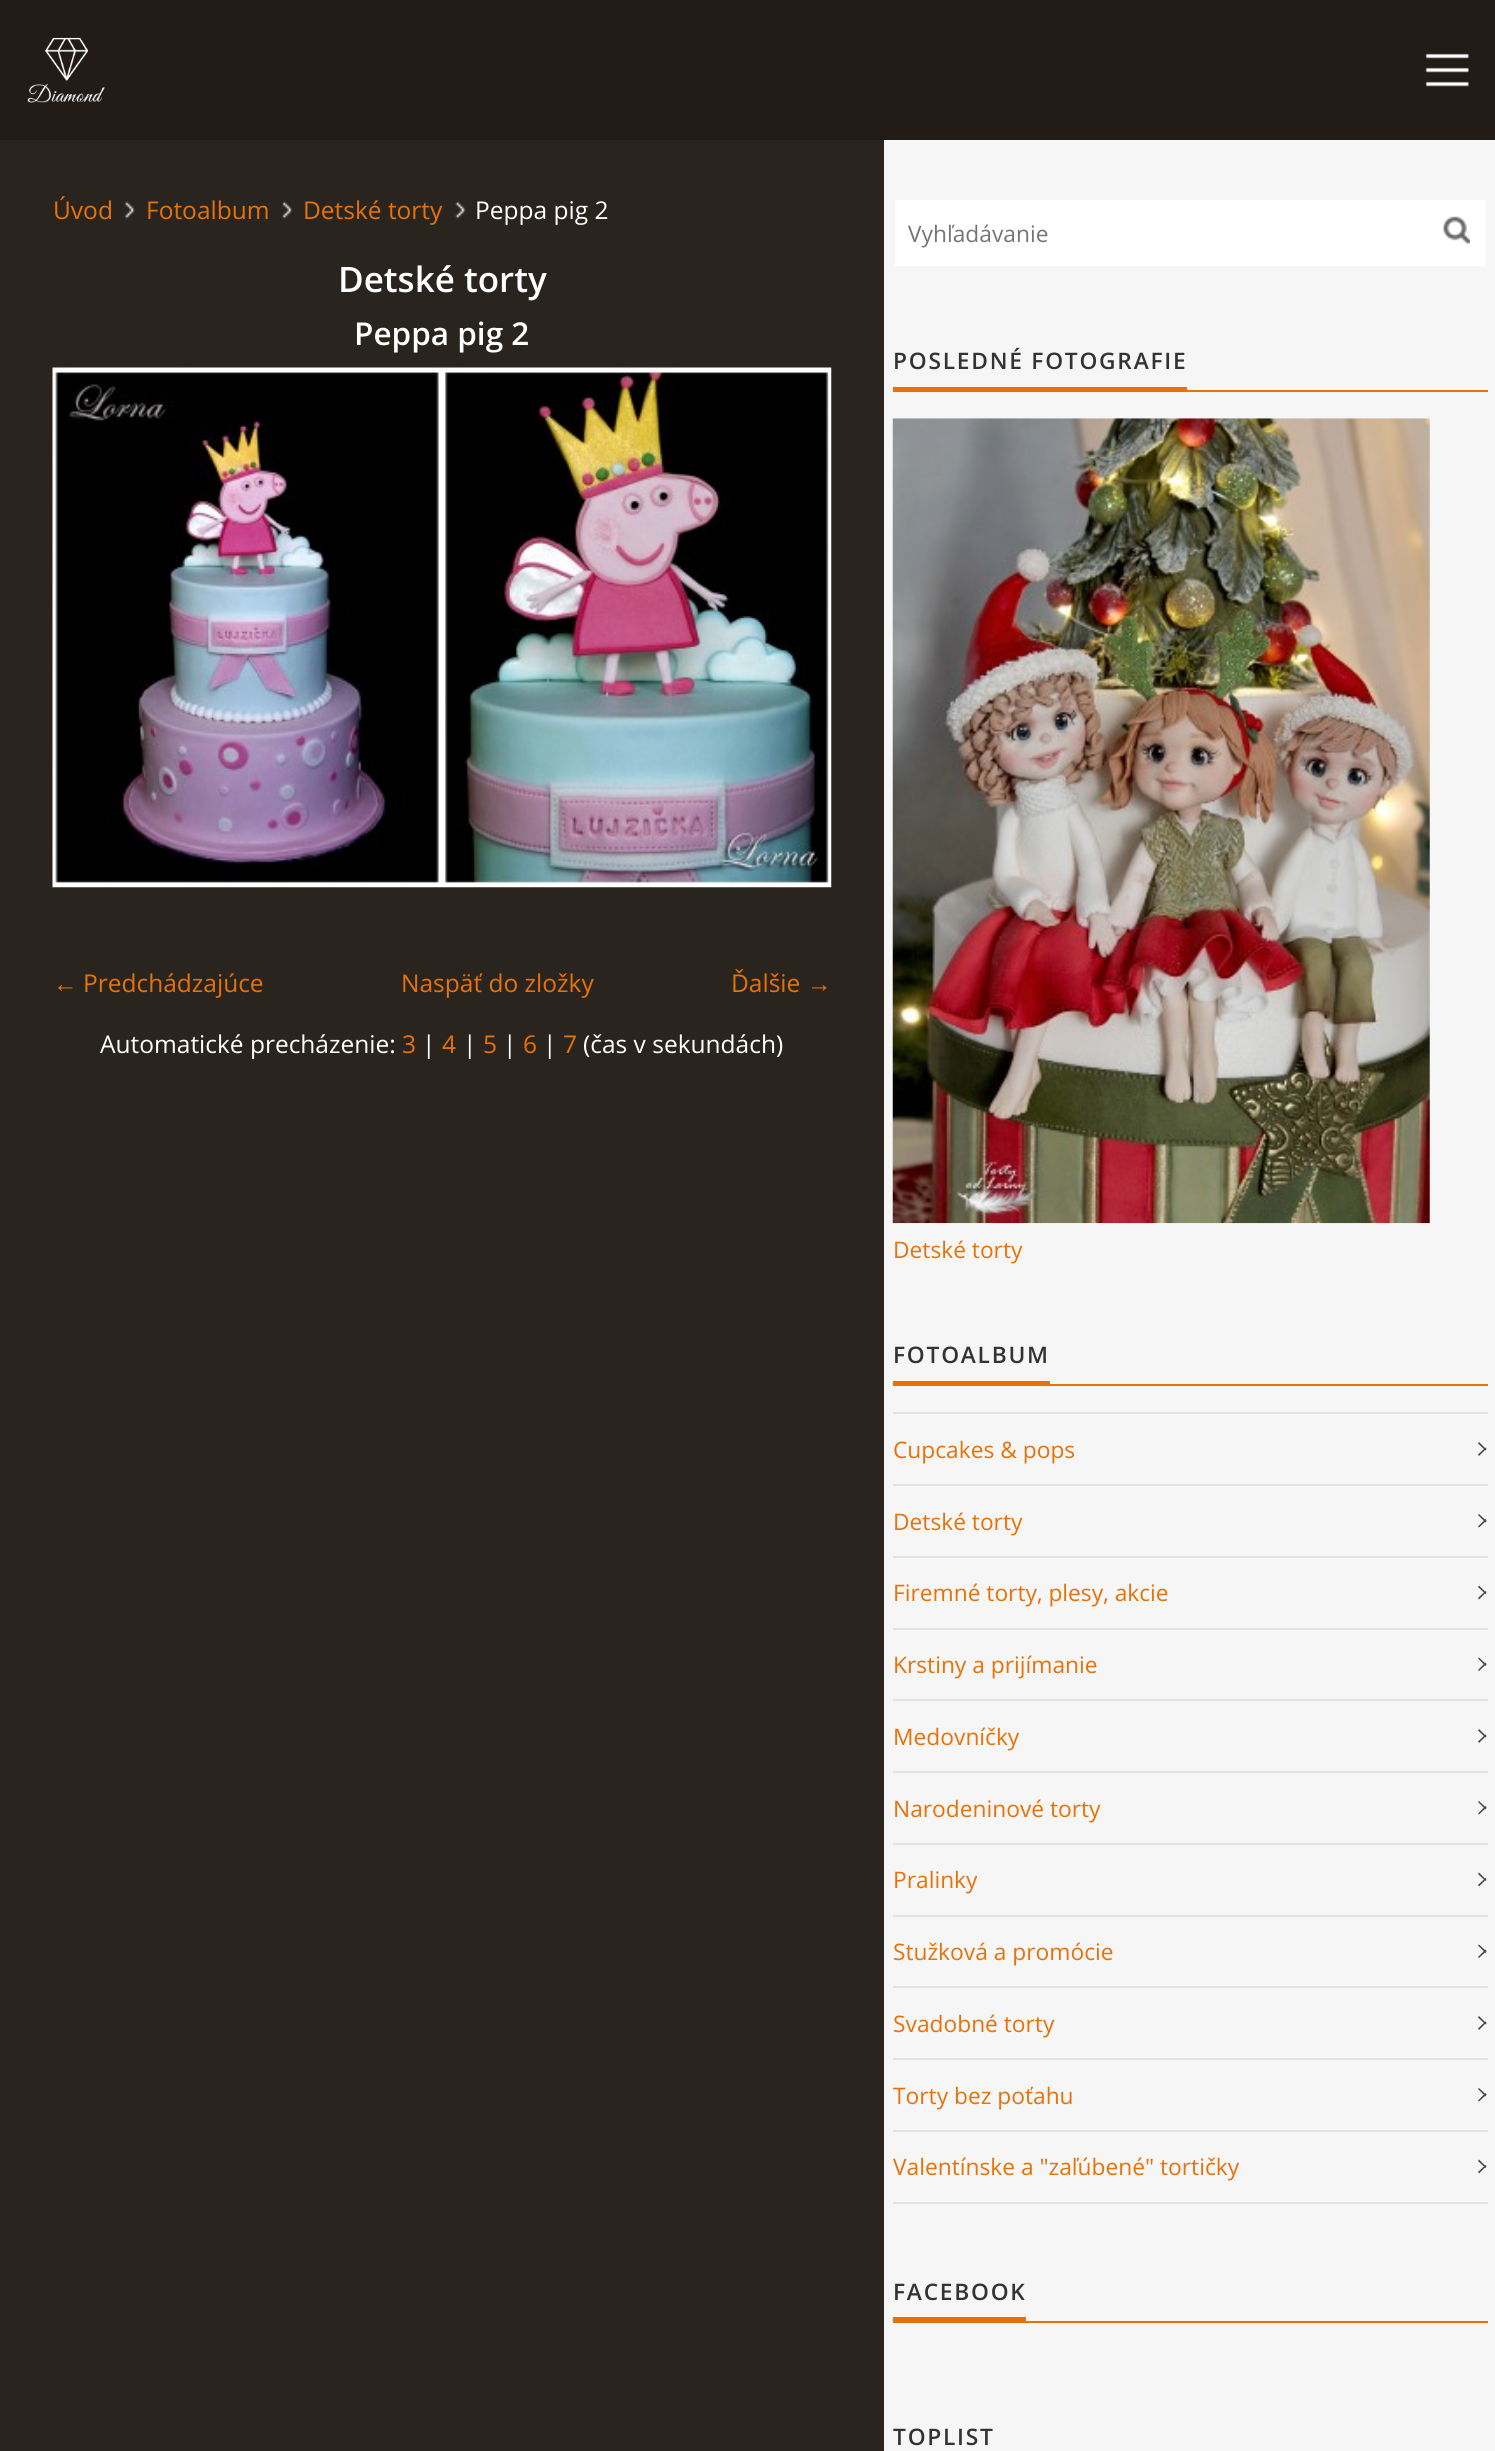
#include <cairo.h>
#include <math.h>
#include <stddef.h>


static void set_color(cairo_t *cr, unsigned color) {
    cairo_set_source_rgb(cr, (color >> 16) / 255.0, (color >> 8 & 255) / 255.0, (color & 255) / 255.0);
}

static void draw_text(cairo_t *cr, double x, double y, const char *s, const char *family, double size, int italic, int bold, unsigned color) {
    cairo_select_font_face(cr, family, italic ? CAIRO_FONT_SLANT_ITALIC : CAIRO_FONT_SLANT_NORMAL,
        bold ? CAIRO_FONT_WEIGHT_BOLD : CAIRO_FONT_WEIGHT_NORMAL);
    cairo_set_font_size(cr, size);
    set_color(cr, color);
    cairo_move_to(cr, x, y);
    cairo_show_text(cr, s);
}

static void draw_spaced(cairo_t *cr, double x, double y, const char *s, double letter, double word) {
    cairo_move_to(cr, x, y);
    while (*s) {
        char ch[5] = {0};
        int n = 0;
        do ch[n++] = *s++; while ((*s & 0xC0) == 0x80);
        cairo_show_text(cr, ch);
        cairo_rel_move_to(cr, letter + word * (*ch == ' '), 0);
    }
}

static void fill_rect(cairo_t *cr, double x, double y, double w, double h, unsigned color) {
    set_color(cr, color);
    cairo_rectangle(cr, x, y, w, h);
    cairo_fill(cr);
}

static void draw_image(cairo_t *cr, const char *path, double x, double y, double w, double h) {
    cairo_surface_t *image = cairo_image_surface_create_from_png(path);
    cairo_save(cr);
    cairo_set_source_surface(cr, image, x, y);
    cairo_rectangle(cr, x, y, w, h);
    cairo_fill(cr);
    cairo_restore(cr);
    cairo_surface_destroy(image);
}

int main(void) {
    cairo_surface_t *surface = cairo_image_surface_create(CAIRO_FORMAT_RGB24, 1495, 2451);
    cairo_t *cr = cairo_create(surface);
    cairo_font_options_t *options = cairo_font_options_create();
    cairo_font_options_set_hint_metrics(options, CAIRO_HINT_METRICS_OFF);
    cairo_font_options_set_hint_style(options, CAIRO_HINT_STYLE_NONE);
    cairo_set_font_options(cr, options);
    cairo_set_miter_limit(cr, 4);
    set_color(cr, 0x29241E);
    cairo_paint(cr);
    fill_rect(cr, 0, 0, 1495, 140, 0x221B16);
    draw_image(cr, "assets/img1.png", 27, 37, 78, 66);
    draw_image(cr, "assets/img2.png", 1425, 53, 44, 34);
    draw_image(cr, "assets/img3.png", 124, 201, 11, 18);
    draw_text(cr, 53, 219, "Úvod", "Open Sans", 24.5, 0, 0, 0xE67209);
    draw_image(cr, "assets/img4.png", 281, 201, 12, 18);
    draw_text(cr, 146, 219, "Fotoalbum", "Open Sans", 24.5, 0, 0, 0xE67209);
    draw_image(cr, "assets/img5.png", 455, 201, 11, 18);
    draw_text(cr, 303, 219, "Detské torty", "Open Sans", 24.5, 0, 0, 0xE67209);
    draw_text(cr, 475, 219, "Peppa pig 2", "Open Sans", 24.5, 0, 0, 0xFFFFFF);
    draw_text(cr, 338, 292, "Detské torty", "Open Sans SemiBold", 35, 0, 0, 0xFFFFFF);
    draw_text(cr, 354, 345, "Peppa pig 2", "Open Sans SemiBold", 31.5, 0, 0, 0xFFFFFF);
    draw_image(cr, "assets/img6.png", 52, 367, 780, 521);
    draw_text(cr, 53, 992, "←", "Liberation Serif", 24.5, 0, 0, 0xE67209);
    draw_text(cr, 83, 992, "Predchádzajúce", "Open Sans", 24.5, 0, 0, 0xE67209);
    draw_text(cr, 401, 992, "Naspäť do zložky", "Open Sans", 24.5, 0, 0, 0xE67209);
    draw_text(cr, 731, 992, "Ďalšie", "Open Sans", 24.5, 0, 0, 0xE67209);
    draw_text(cr, 807, 992, "→", "Liberation Serif", 24.5, 0, 0, 0xE67209);
    draw_text(cr, 100, 1053, "Automatické precházenie:", "Open Sans", 24.5, 0, 0, 0xFFFFFF);
    draw_text(cr, 402, 1053, "3", "Open Sans", 24.5, 0, 0, 0xE67209);
    draw_text(cr, 422, 1053, "|", "Open Sans", 24.5, 0, 0, 0xFFFFFF);
    draw_text(cr, 442, 1053, "4", "Open Sans", 24.5, 0, 0, 0xE67209);
    draw_text(cr, 463, 1053, "|", "Open Sans", 24.5, 0, 0, 0xFFFFFF);
    draw_text(cr, 483, 1053, "5", "Open Sans", 24.5, 0, 0, 0xE67209);
    draw_text(cr, 503, 1053, "|", "Open Sans", 24.5, 0, 0, 0xFFFFFF);
    draw_text(cr, 523, 1053, "6", "Open Sans", 24.5, 0, 0, 0xE67209);
    draw_text(cr, 543, 1053, "|", "Open Sans", 24.5, 0, 0, 0xFFFFFF);
    draw_text(cr, 563, 1053, "7", "Open Sans", 24.5, 0, 0, 0xE67209);
    draw_text(cr, 583, 1053, "(čas v sekundách)", "Open Sans", 24.5, 0, 0, 0xFFFFFF);
    fill_rect(cr, 884, 140, 611, 2311, 0xF6F6F6);
    fill_rect(cr, 895, 200, 591, 66, 0xFFFFFF);
    draw_text(cr, 908, 242, "Vyhľadávanie", "Open Sans", 22.75, 0, 0, 0x757575);
    draw_image(cr, "assets/img7.png", 1443, 216, 27, 28);
    cairo_select_font_face(cr, "Open Sans SemiBold", CAIRO_FONT_SLANT_NORMAL, CAIRO_FONT_WEIGHT_NORMAL);
    set_color(cr, 0x333333);
    draw_spaced(cr, 893, 369, "POSLEDNÉ FOTOGRAFIE", 1.75, 0);
    fill_rect(cr, 893, 387, 294, 3, 0xE67209);
    fill_rect(cr, 893, 390, 595, 2, 0xE67209);
    draw_image(cr, "assets/img8.png", 892, 418, 538, 806);
    draw_text(cr, 893, 1258, "Detské torty", "Open Sans", 22.75, 0, 0, 0xE67209);
    cairo_select_font_face(cr, "Open Sans SemiBold", CAIRO_FONT_SLANT_NORMAL, CAIRO_FONT_WEIGHT_NORMAL);
    set_color(cr, 0x333333);
    draw_spaced(cr, 893, 1363, "FOTOALBUM", 1.75, 0);
    fill_rect(cr, 893, 1381, 157, 3, 0xE67209);
    fill_rect(cr, 893, 1384, 595, 2, 0xE67209);
    fill_rect(cr, 893, 1412, 595, 2, 0xE8DFDF);
    fill_rect(cr, 893, 1484, 595, 2, 0xE8DFDF);
    draw_text(cr, 893, 1458, "Cupcakes & pops", "Open Sans", 22.75, 0, 0, 0xE67209);
    set_color(cr, 0x484848);
    cairo_new_path(cr);
    cairo_move_to(cr, 1479, 1442);
    cairo_line_to(cr, 1486.5, 1449.5);
    cairo_line_to(cr, 1485.5, 1450.5);
    cairo_line_to(cr, 1478, 1443.5);
    cairo_close_path(cr);
    cairo_fill(cr);
    cairo_new_path(cr);
    cairo_move_to(cr, 1478, 1454.5);
    cairo_line_to(cr, 1485.5, 1447.5);
    cairo_line_to(cr, 1486.5, 1448.5);
    cairo_line_to(cr, 1479, 1456);
    cairo_close_path(cr);
    cairo_fill(cr);
    fill_rect(cr, 893, 1556, 595, 2, 0xE8DFDF);
    draw_text(cr, 893, 1530, "Detské torty", "Open Sans", 22.75, 0, 0, 0xE67209);
    set_color(cr, 0x484848);
    cairo_new_path(cr);
    cairo_move_to(cr, 1479, 1514);
    cairo_line_to(cr, 1486.5, 1521);
    cairo_line_to(cr, 1485.5, 1522.5);
    cairo_line_to(cr, 1478, 1515);
    cairo_close_path(cr);
    cairo_fill(cr);
    cairo_new_path(cr);
    cairo_move_to(cr, 1478, 1526.5);
    cairo_line_to(cr, 1485.5, 1519);
    cairo_line_to(cr, 1486.5, 1520.5);
    cairo_line_to(cr, 1479, 1527.5);
    cairo_close_path(cr);
    cairo_fill(cr);
    fill_rect(cr, 893, 1628, 595, 2, 0xE8DFDF);
    draw_text(cr, 893, 1601, "Firemné torty, plesy, akcie", "Open Sans", 22.75, 0, 0, 0xE67209);
    set_color(cr, 0x484848);
    cairo_new_path(cr);
    cairo_move_to(cr, 1479, 1585.5);
    cairo_line_to(cr, 1486.5, 1593);
    cairo_line_to(cr, 1485.5, 1594);
    cairo_line_to(cr, 1478, 1587);
    cairo_close_path(cr);
    cairo_fill(cr);
    cairo_new_path(cr);
    cairo_move_to(cr, 1478, 1598);
    cairo_line_to(cr, 1485.5, 1591);
    cairo_line_to(cr, 1486.5, 1592);
    cairo_line_to(cr, 1479, 1599.5);
    cairo_close_path(cr);
    cairo_fill(cr);
    fill_rect(cr, 893, 1699, 595, 2, 0xE8DFDF);
    draw_text(cr, 893, 1673, "Krstiny a prijímanie", "Open Sans", 22.75, 0, 0, 0xE67209);
    set_color(cr, 0x484848);
    cairo_new_path(cr);
    cairo_move_to(cr, 1479, 1657.5);
    cairo_line_to(cr, 1486.5, 1664.5);
    cairo_line_to(cr, 1485.5, 1666);
    cairo_line_to(cr, 1478, 1658.5);
    cairo_close_path(cr);
    cairo_fill(cr);
    cairo_new_path(cr);
    cairo_move_to(cr, 1478, 1670);
    cairo_line_to(cr, 1485.5, 1662.5);
    cairo_line_to(cr, 1486.5, 1664);
    cairo_line_to(cr, 1479, 1671);
    cairo_close_path(cr);
    cairo_fill(cr);
    fill_rect(cr, 893, 1771, 595, 2, 0xE8DFDF);
    draw_text(cr, 893, 1745, "Medovníčky", "Open Sans", 22.75, 0, 0, 0xE67209);
    set_color(cr, 0x484848);
    cairo_new_path(cr);
    cairo_move_to(cr, 1479, 1729);
    cairo_line_to(cr, 1486.5, 1736.5);
    cairo_line_to(cr, 1485.5, 1737.5);
    cairo_line_to(cr, 1478, 1730.5);
    cairo_close_path(cr);
    cairo_fill(cr);
    cairo_new_path(cr);
    cairo_move_to(cr, 1478, 1741.5);
    cairo_line_to(cr, 1485.5, 1734.5);
    cairo_line_to(cr, 1486.5, 1735.5);
    cairo_line_to(cr, 1479, 1743);
    cairo_close_path(cr);
    cairo_fill(cr);
    fill_rect(cr, 893, 1843, 595, 2, 0xE8DFDF);
    draw_text(cr, 893, 1817, "Narodeninové torty", "Open Sans", 22.75, 0, 0, 0xE67209);
    set_color(cr, 0x484848);
    cairo_new_path(cr);
    cairo_move_to(cr, 1479, 1801);
    cairo_line_to(cr, 1486.5, 1808);
    cairo_line_to(cr, 1485.5, 1809.5);
    cairo_line_to(cr, 1478, 1802);
    cairo_close_path(cr);
    cairo_fill(cr);
    cairo_new_path(cr);
    cairo_move_to(cr, 1478, 1813.5);
    cairo_line_to(cr, 1485.5, 1806);
    cairo_line_to(cr, 1486.5, 1807.5);
    cairo_line_to(cr, 1479, 1814.5);
    cairo_close_path(cr);
    cairo_fill(cr);
    fill_rect(cr, 893, 1915, 595, 2, 0xE8DFDF);
    draw_text(cr, 893, 1888, "Pralinky", "Open Sans", 22.75, 0, 0, 0xE67209);
    set_color(cr, 0x484848);
    cairo_new_path(cr);
    cairo_move_to(cr, 1479, 1872.5);
    cairo_line_to(cr, 1486.5, 1880);
    cairo_line_to(cr, 1485.5, 1881);
    cairo_line_to(cr, 1478, 1874);
    cairo_close_path(cr);
    cairo_fill(cr);
    cairo_new_path(cr);
    cairo_move_to(cr, 1478, 1885);
    cairo_line_to(cr, 1485.5, 1878);
    cairo_line_to(cr, 1486.5, 1879);
    cairo_line_to(cr, 1479, 1886.5);
    cairo_close_path(cr);
    cairo_fill(cr);
    fill_rect(cr, 893, 1986, 595, 2, 0xE8DFDF);
    draw_text(cr, 893, 1960, "Stužková a promócie", "Open Sans", 22.75, 0, 0, 0xE67209);
    set_color(cr, 0x484848);
    cairo_new_path(cr);
    cairo_move_to(cr, 1479, 1944.5);
    cairo_line_to(cr, 1486.5, 1951.5);
    cairo_line_to(cr, 1485.5, 1953);
    cairo_line_to(cr, 1478, 1945.5);
    cairo_close_path(cr);
    cairo_fill(cr);
    cairo_new_path(cr);
    cairo_move_to(cr, 1478, 1957);
    cairo_line_to(cr, 1485.5, 1949.5);
    cairo_line_to(cr, 1486.5, 1951);
    cairo_line_to(cr, 1479, 1958);
    cairo_close_path(cr);
    cairo_fill(cr);
    fill_rect(cr, 893, 2058, 595, 2, 0xE8DFDF);
    draw_text(cr, 893, 2032, "Svadobné torty", "Open Sans", 22.75, 0, 0, 0xE67209);
    set_color(cr, 0x484848);
    cairo_new_path(cr);
    cairo_move_to(cr, 1479, 2016);
    cairo_line_to(cr, 1486.5, 2023.5);
    cairo_line_to(cr, 1485.5, 2024.5);
    cairo_line_to(cr, 1478, 2017.5);
    cairo_close_path(cr);
    cairo_fill(cr);
    cairo_new_path(cr);
    cairo_move_to(cr, 1478, 2028.5);
    cairo_line_to(cr, 1485.5, 2021.5);
    cairo_line_to(cr, 1486.5, 2022.5);
    cairo_line_to(cr, 1479, 2030);
    cairo_close_path(cr);
    cairo_fill(cr);
    fill_rect(cr, 893, 2130, 595, 2, 0xE8DFDF);
    cairo_save(cr);
    cairo_rectangle(cr, 893, 140, 595, 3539);
    cairo_clip(cr);
    draw_text(cr, 893, 2104, "Torty bez poťahu", "Open Sans", 22.75, 0, 0, 0xE67209);
    cairo_restore(cr);
    set_color(cr, 0x484848);
    cairo_new_path(cr);
    cairo_move_to(cr, 1479, 2088);
    cairo_line_to(cr, 1486.5, 2095);
    cairo_line_to(cr, 1485.5, 2096.5);
    cairo_line_to(cr, 1478, 2089);
    cairo_close_path(cr);
    cairo_fill(cr);
    cairo_new_path(cr);
    cairo_move_to(cr, 1478, 2100.5);
    cairo_line_to(cr, 1485.5, 2093);
    cairo_line_to(cr, 1486.5, 2094.5);
    cairo_line_to(cr, 1479, 2101.5);
    cairo_close_path(cr);
    cairo_fill(cr);
    fill_rect(cr, 893, 2202, 595, 2, 0xE8DFDF);
    draw_text(cr, 893, 2175, "Valentínske a \"zaľúbené\" tortičky", "Open Sans", 22.75, 0, 0, 0xE67209);
    set_color(cr, 0x484848);
    cairo_new_path(cr);
    cairo_move_to(cr, 1479, 2159.5);
    cairo_line_to(cr, 1486.5, 2167);
    cairo_line_to(cr, 1485.5, 2168);
    cairo_line_to(cr, 1478, 2161);
    cairo_close_path(cr);
    cairo_fill(cr);
    cairo_new_path(cr);
    cairo_move_to(cr, 1478, 2172);
    cairo_line_to(cr, 1485.5, 2165);
    cairo_line_to(cr, 1486.5, 2166);
    cairo_line_to(cr, 1479, 2173.5);
    cairo_close_path(cr);
    cairo_fill(cr);
    cairo_select_font_face(cr, "Open Sans SemiBold", CAIRO_FONT_SLANT_NORMAL, CAIRO_FONT_WEIGHT_NORMAL);
    set_color(cr, 0x333333);
    draw_spaced(cr, 893, 2300, "FACEBOOK", 1.75, 0);
    fill_rect(cr, 893, 2317, 133, 4, 0xE67209);
    fill_rect(cr, 893, 2321, 595, 2, 0xE67209);
    set_color(cr, 0x333333);
    draw_spaced(cr, 893, 2445, "TOPLIST", 1.75, 0);
    cairo_surface_write_to_png(surface, "output.png");
    cairo_font_options_destroy(options);
    cairo_destroy(cr);
    cairo_surface_destroy(surface);
    return 0;
}
